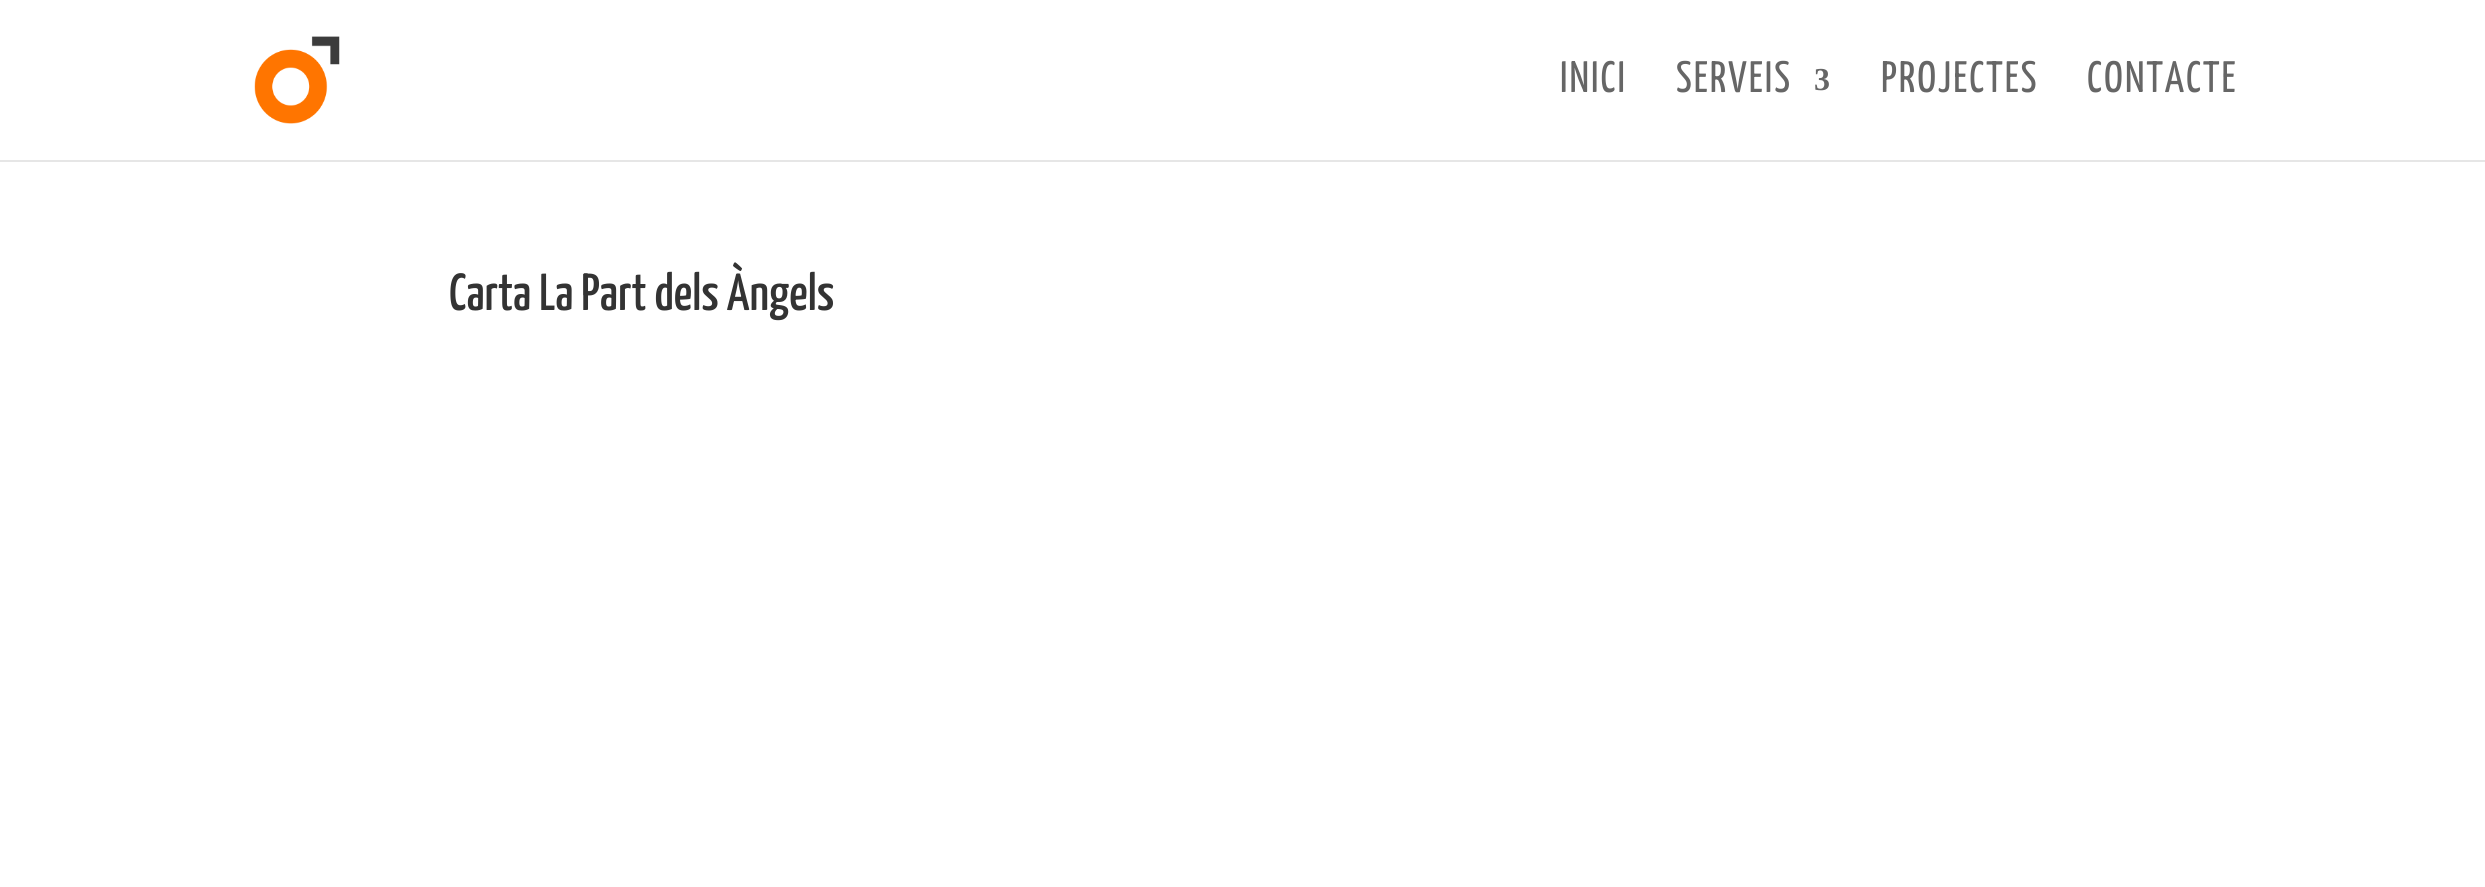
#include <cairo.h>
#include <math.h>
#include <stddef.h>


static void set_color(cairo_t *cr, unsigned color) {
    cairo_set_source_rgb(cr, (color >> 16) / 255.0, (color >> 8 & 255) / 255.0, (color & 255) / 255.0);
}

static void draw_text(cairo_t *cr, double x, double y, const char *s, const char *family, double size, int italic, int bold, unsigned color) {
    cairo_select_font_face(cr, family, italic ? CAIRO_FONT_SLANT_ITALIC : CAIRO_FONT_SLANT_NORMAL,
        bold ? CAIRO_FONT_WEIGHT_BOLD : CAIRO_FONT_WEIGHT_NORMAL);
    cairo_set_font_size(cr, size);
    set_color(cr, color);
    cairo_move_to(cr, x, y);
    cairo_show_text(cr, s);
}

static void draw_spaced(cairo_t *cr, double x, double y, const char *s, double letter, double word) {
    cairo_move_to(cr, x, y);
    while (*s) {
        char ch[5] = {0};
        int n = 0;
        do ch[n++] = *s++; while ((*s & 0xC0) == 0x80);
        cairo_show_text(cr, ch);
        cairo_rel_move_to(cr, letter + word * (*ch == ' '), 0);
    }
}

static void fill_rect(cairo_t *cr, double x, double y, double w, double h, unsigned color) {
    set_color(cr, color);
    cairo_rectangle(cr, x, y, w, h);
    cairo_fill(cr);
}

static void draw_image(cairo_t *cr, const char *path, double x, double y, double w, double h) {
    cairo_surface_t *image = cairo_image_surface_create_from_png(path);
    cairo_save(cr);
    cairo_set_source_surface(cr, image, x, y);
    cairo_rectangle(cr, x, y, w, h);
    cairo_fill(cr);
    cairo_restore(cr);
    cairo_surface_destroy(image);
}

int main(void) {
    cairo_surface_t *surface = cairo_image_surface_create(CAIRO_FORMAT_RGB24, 2485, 887);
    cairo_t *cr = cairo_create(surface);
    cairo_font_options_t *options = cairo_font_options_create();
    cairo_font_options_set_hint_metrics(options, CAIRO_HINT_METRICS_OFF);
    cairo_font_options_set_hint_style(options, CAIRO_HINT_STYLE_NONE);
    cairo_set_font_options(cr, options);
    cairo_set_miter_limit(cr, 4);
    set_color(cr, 0xFFFFFF);
    cairo_paint(cr);
    fill_rect(cr, 0, 160, 2485, 2, 0xE6E6E6);
    draw_image(cr, "assets/img1.png", 254, 36, 86, 88);
    cairo_select_font_face(cr, "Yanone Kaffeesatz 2 ExtraLight", CAIRO_FONT_SLANT_NORMAL, CAIRO_FONT_WEIGHT_NORMAL);
    cairo_set_font_size(cr, 44);
    set_color(cr, 0x666666);
    draw_spaced(cr, 1560, 92, "INICI", 2, 0);
    draw_spaced(cr, 1676, 92, "SERVEIS", 2, 0);
    cairo_select_font_face(cr, "Liberation Serif", CAIRO_FONT_SLANT_NORMAL, CAIRO_FONT_WEIGHT_BOLD);
    cairo_set_font_size(cr, 32);
    draw_spaced(cr, 1814, 90, "3", 2, 0);
    cairo_select_font_face(cr, "Yanone Kaffeesatz 2 ExtraLight", CAIRO_FONT_SLANT_NORMAL, CAIRO_FONT_WEIGHT_NORMAL);
    cairo_set_font_size(cr, 44);
    draw_spaced(cr, 1881, 92, "PROJECTES", 2, 0);
    draw_spaced(cr, 2087, 92, "CONTACTE", 2, 0);
    draw_text(cr, 449, 310, "Carta La Part dels Àngels", "Yanone Kaffeesatz ExtraLight", 52, 0, 0, 0x333333);
    cairo_surface_write_to_png(surface, "output.png");
    cairo_font_options_destroy(options);
    cairo_destroy(cr);
    cairo_surface_destroy(surface);
    return 0;
}
